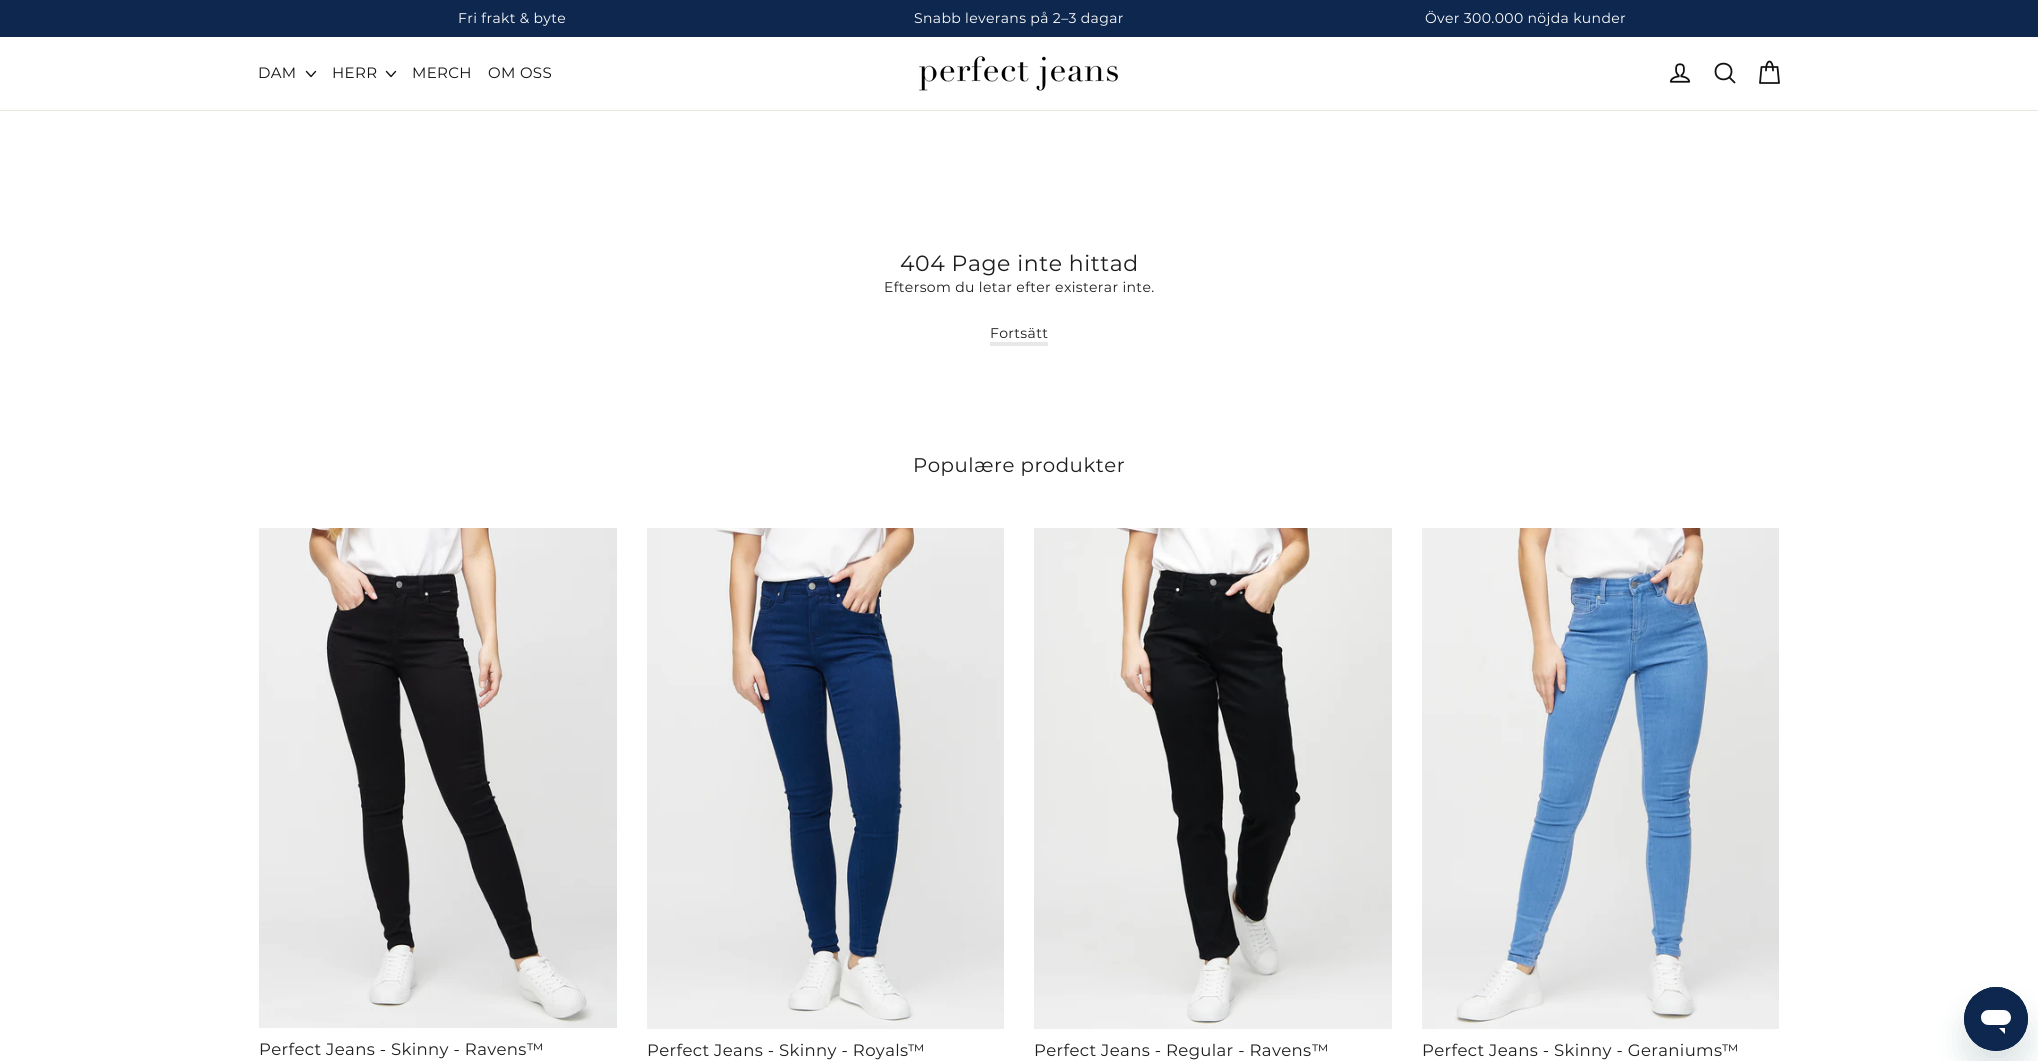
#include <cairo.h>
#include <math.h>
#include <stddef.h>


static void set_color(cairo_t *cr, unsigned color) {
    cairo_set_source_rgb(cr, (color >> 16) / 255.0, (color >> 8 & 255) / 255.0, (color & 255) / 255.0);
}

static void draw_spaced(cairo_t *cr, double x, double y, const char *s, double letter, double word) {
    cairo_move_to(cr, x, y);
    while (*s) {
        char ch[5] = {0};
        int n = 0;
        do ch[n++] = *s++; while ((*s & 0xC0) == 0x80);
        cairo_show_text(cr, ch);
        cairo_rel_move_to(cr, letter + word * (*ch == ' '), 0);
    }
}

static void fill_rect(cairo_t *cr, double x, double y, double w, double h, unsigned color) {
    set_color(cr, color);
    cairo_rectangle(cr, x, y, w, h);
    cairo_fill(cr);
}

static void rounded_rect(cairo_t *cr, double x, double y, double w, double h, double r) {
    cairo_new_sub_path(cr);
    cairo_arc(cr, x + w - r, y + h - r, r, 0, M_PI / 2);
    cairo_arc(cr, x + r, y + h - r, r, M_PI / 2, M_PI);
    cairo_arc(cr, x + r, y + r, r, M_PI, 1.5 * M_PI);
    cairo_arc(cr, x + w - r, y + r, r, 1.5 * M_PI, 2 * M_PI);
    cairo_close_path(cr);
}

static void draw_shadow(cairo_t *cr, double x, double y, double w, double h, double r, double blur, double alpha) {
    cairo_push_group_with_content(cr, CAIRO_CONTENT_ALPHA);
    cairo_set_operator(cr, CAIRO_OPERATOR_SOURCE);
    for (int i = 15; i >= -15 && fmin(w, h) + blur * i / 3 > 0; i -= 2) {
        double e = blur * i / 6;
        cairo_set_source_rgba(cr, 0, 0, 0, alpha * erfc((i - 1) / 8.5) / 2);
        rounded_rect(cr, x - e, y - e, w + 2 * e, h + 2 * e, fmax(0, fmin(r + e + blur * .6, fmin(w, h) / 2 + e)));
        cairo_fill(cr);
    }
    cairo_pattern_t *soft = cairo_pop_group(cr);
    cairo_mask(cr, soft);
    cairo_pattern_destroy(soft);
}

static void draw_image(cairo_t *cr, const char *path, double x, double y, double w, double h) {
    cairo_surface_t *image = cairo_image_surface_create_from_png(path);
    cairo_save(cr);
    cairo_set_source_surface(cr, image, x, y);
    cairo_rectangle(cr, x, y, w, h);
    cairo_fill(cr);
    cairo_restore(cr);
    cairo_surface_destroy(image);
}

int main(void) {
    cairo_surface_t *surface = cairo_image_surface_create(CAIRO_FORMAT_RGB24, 2038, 1061);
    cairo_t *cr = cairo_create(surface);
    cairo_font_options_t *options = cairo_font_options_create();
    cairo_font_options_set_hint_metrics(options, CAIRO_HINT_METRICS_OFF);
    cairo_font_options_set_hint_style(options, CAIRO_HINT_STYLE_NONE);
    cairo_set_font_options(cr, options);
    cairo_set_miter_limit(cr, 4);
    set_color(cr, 0xFFFFFF);
    cairo_paint(cr);
    fill_rect(cr, 0, 0, 2038, 37, 0x0E274F);
    cairo_select_font_face(cr, "Montserrat", CAIRO_FONT_SLANT_NORMAL, CAIRO_FONT_WEIGHT_NORMAL);
    cairo_set_font_size(cr, 14);
    set_color(cr, 0xFFFFFF);
    draw_spaced(cr, 458, 23, "Fri frakt & byte", 0.35, 0);
    draw_spaced(cr, 914, 23, "Snabb leverans på 2–3 dagar", 0.35, 0);
    draw_spaced(cr, 1425, 23, "Över 300.000 nöjda kunder", 0.35, 0);
    fill_rect(cr, 0, 110, 2038, 1, 0xE8E8E1);
    cairo_set_font_size(cr, 15);
    set_color(cr, 0x111111);
    draw_spaced(cr, 258, 78, "DAM", 0.35, 0);
    cairo_new_path(cr);
    cairo_move_to(cr, 306.5, 71.5);
    cairo_line_to(cr, 311, 76.5);
    cairo_line_to(cr, 315.5, 71.5);
    cairo_set_line_width(cr, 1.4);
    cairo_set_line_cap(cr, CAIRO_LINE_CAP_ROUND);
    cairo_set_line_join(cr, CAIRO_LINE_JOIN_ROUND);
    cairo_stroke(cr);
    draw_spaced(cr, 332, 78, "HERR", 0.35, 0);
    cairo_new_path(cr);
    cairo_move_to(cr, 386.5, 71.5);
    cairo_line_to(cr, 391, 76.5);
    cairo_line_to(cr, 395.5, 71.5);
    cairo_stroke(cr);
    draw_spaced(cr, 412, 78, "MERCH", 0.35, 0);
    draw_spaced(cr, 488, 78, "OM OSS", 0.35, 0);
    draw_image(cr, "assets/img1.png", 919, 56, 200, 35);
    draw_image(cr, "assets/img2.png", 1669, 63, 22, 20);
    cairo_new_path(cr);
    cairo_move_to(cr, 1731.5, 71.5);
    cairo_curve_to(cr, 1731.5, 82, 1715.5, 82, 1715.5, 71.5);
    cairo_curve_to(cr, 1715.5, 61, 1731.5, 61, 1731.5, 71.5);
    cairo_close_path(cr);
    cairo_move_to(cr, 1734.5, 82.5);
    cairo_line_to(cr, 1729.5, 77.5);
    cairo_set_line_width(cr, 1.8);
    cairo_stroke(cr);
    cairo_new_path(cr);
    cairo_move_to(cr, 1766, 70.5);
    cairo_curve_to(cr, 1766, 58.5, 1773, 58.5, 1773, 70.5);
    cairo_move_to(cr, 1761.5, 67);
    cairo_line_to(cr, 1777.5, 67);
    cairo_line_to(cr, 1779, 83);
    cairo_line_to(cr, 1760, 83);
    cairo_close_path(cr);
    cairo_stroke(cr);
    cairo_set_font_size(cr, 22);
    set_color(cr, 0x1C1D1D);
    draw_spaced(cr, 900, 271, "404 Page inte hittad", 0.55, 0);
    cairo_set_font_size(cr, 14);
    draw_spaced(cr, 884, 292, "Eftersom du letar efter existerar inte.", 0.35, 0);
    draw_spaced(cr, 990, 338, "Fortsätt", 0.35, 0);
    fill_rect(cr, 990, 342, 58, 4, 0xE8E8E8);
    cairo_set_font_size(cr, 19.75);
    set_color(cr, 0x1C1D1D);
    draw_spaced(cr, 913, 472, "Populære produkter", 0.5, 0);
    draw_image(cr, "assets/img3.png", 259, 528, 358, 500);
    cairo_set_font_size(cr, 16.5);
    draw_spaced(cr, 259, 1055, "Perfect Jeans - Skinny - Ravens", 0.35, 0);
    cairo_select_font_face(cr, "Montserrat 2", CAIRO_FONT_SLANT_NORMAL, CAIRO_FONT_WEIGHT_NORMAL);
    draw_spaced(cr, 527, 1055, "™", 0.35, 0);
    draw_image(cr, "assets/img4.png", 647, 528, 357, 501);
    cairo_select_font_face(cr, "Montserrat", CAIRO_FONT_SLANT_NORMAL, CAIRO_FONT_WEIGHT_NORMAL);
    draw_spaced(cr, 647, 1056, "Perfect Jeans - Skinny - Royals", 0.35, 0);
    cairo_select_font_face(cr, "Montserrat 2", CAIRO_FONT_SLANT_NORMAL, CAIRO_FONT_WEIGHT_NORMAL);
    draw_spaced(cr, 908, 1056, "™", 0.35, 0);
    draw_image(cr, "assets/img5.png", 1034, 528, 358, 501);
    cairo_select_font_face(cr, "Montserrat", CAIRO_FONT_SLANT_NORMAL, CAIRO_FONT_WEIGHT_NORMAL);
    draw_spaced(cr, 1034, 1056, "Perfect Jeans - Regular - Ravens", 0.35, 0);
    cairo_select_font_face(cr, "Montserrat 2", CAIRO_FONT_SLANT_NORMAL, CAIRO_FONT_WEIGHT_NORMAL);
    draw_spaced(cr, 1312, 1056, "™", 0.35, 0);
    draw_image(cr, "assets/img6.png", 1422, 528, 357, 501);
    cairo_select_font_face(cr, "Montserrat", CAIRO_FONT_SLANT_NORMAL, CAIRO_FONT_WEIGHT_NORMAL);
    draw_spaced(cr, 1422, 1056, "Perfect Jeans - Skinny - Geraniums", 0.35, 0);
    cairo_select_font_face(cr, "Montserrat 2", CAIRO_FONT_SLANT_NORMAL, CAIRO_FONT_WEIGHT_NORMAL);
    draw_spaced(cr, 1722, 1056, "™", 0.35, 0);
    set_color(cr, 0x17494D);
    draw_shadow(cr, 1964, 1007, 64, 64, 32, 15, 0.15);
    draw_image(cr, "assets/img7.png", 1964, 987, 64, 64);
    cairo_surface_write_to_png(surface, "output.png");
    cairo_font_options_destroy(options);
    cairo_destroy(cr);
    cairo_surface_destroy(surface);
    return 0;
}
